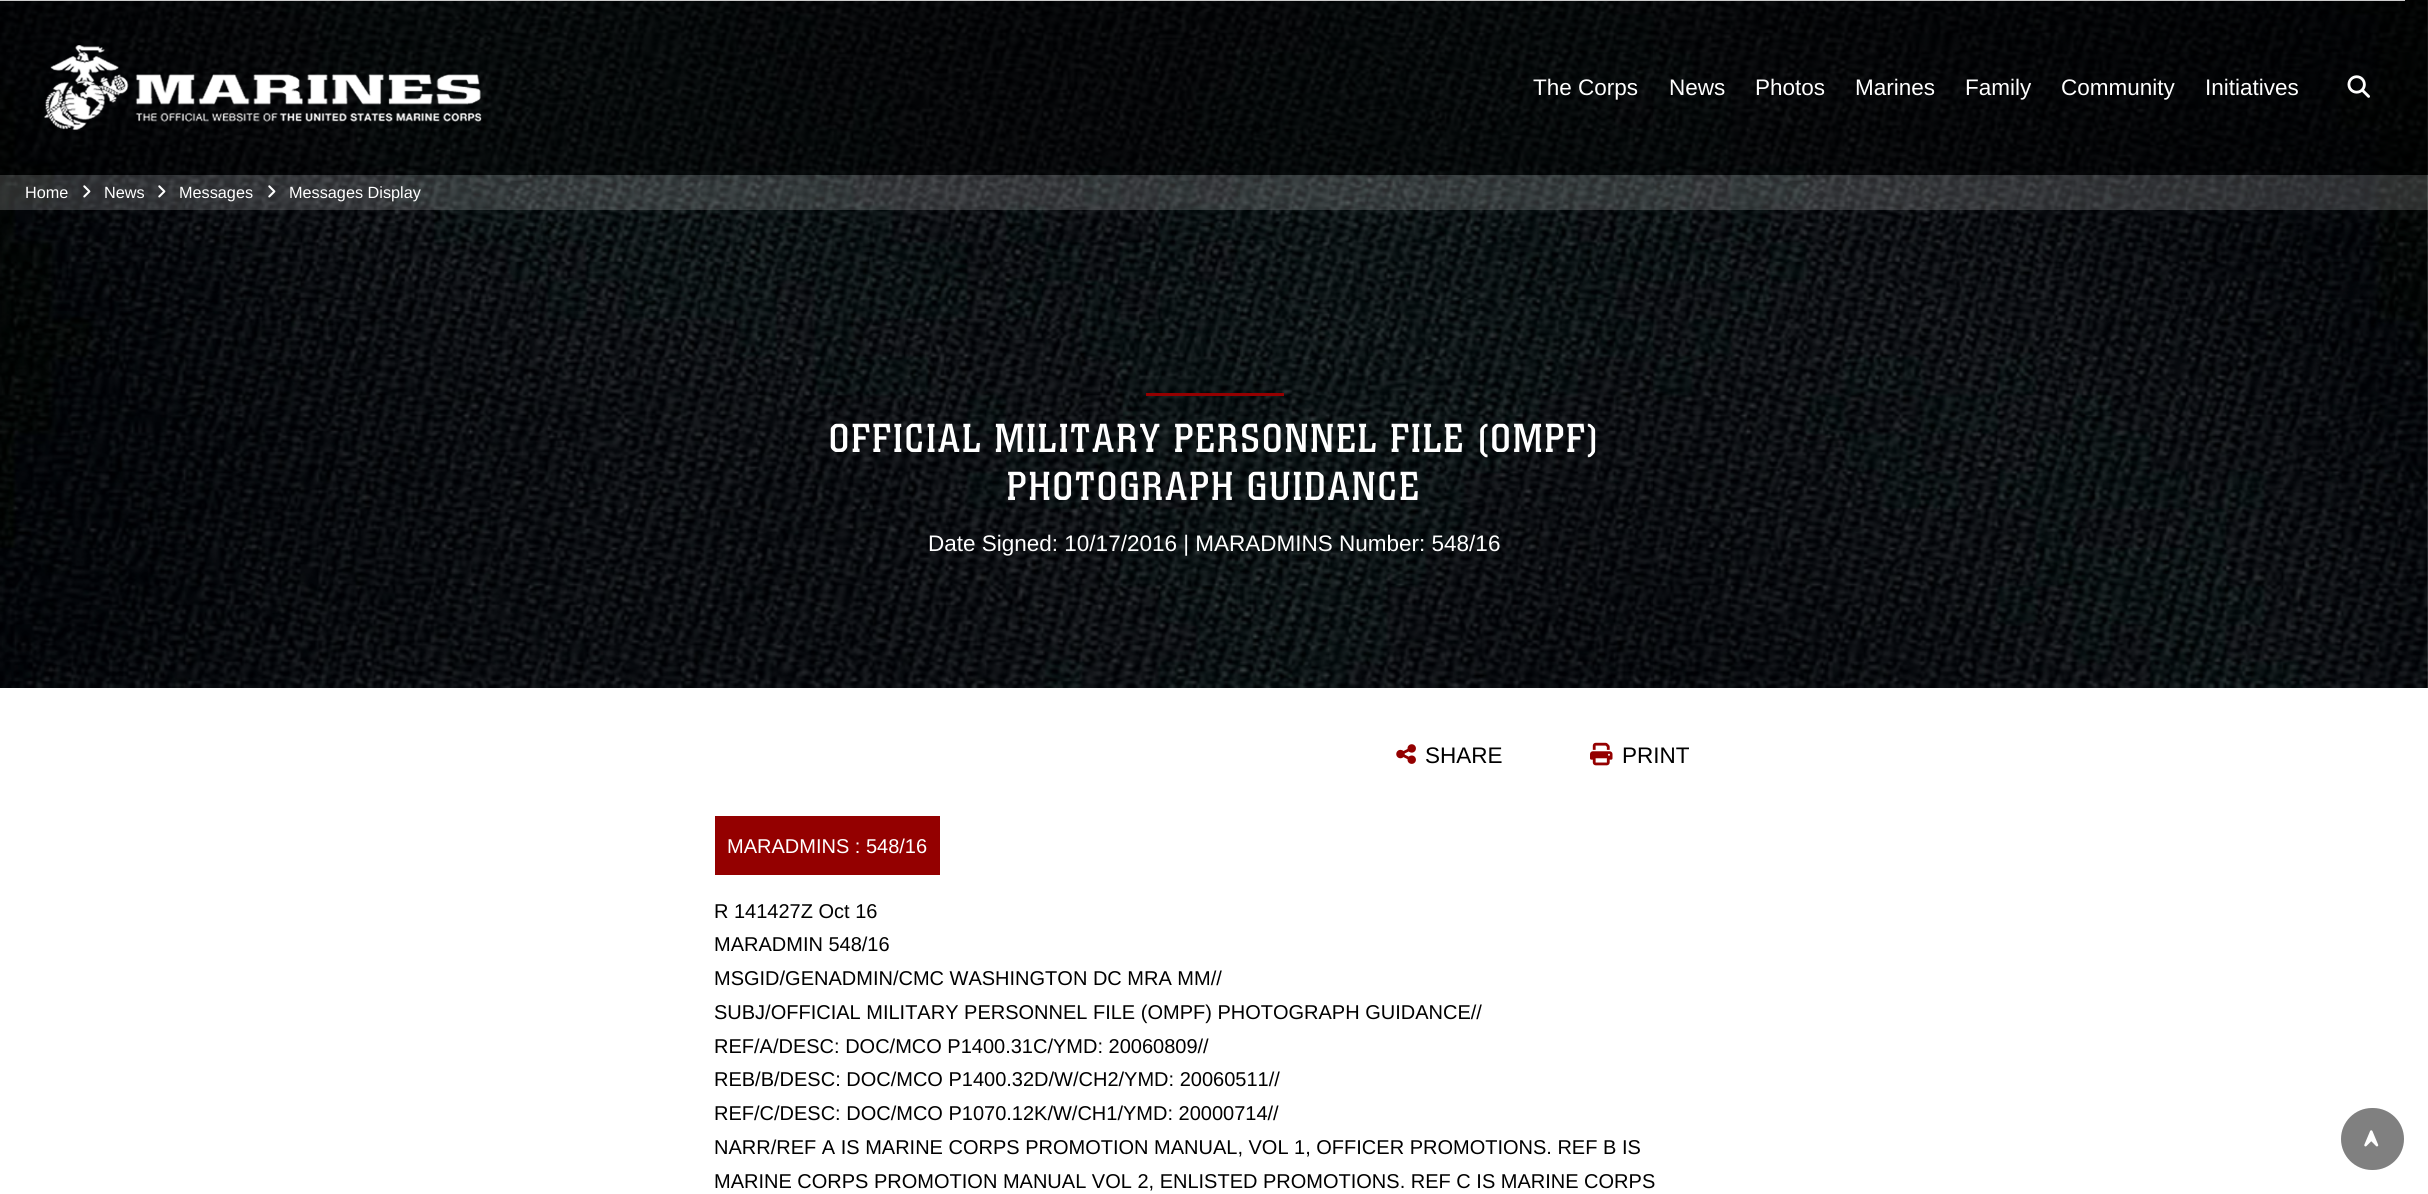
#include <cairo.h>
#include <math.h>
#include <stddef.h>


static void set_color(cairo_t *cr, unsigned color) {
    cairo_set_source_rgb(cr, (color >> 16) / 255.0, (color >> 8 & 255) / 255.0, (color & 255) / 255.0);
}

static void draw_text(cairo_t *cr, double x, double y, const char *s, const char *family, double size, int italic, int bold, unsigned color) {
    cairo_select_font_face(cr, family, italic ? CAIRO_FONT_SLANT_ITALIC : CAIRO_FONT_SLANT_NORMAL,
        bold ? CAIRO_FONT_WEIGHT_BOLD : CAIRO_FONT_WEIGHT_NORMAL);
    cairo_set_font_size(cr, size);
    set_color(cr, color);
    cairo_move_to(cr, x, y);
    cairo_show_text(cr, s);
}

static void draw_spaced(cairo_t *cr, double x, double y, const char *s, double letter, double word) {
    cairo_move_to(cr, x, y);
    while (*s) {
        char ch[5] = {0};
        int n = 0;
        do ch[n++] = *s++; while ((*s & 0xC0) == 0x80);
        cairo_show_text(cr, ch);
        cairo_rel_move_to(cr, letter + word * (*ch == ' '), 0);
    }
}

static void fill_rect(cairo_t *cr, double x, double y, double w, double h, unsigned color) {
    set_color(cr, color);
    cairo_rectangle(cr, x, y, w, h);
    cairo_fill(cr);
}

static void rounded_rect(cairo_t *cr, double x, double y, double w, double h, double r) {
    cairo_new_sub_path(cr);
    cairo_arc(cr, x + w - r, y + h - r, r, 0, M_PI / 2);
    cairo_arc(cr, x + r, y + h - r, r, M_PI / 2, M_PI);
    cairo_arc(cr, x + r, y + r, r, M_PI, 1.5 * M_PI);
    cairo_arc(cr, x + w - r, y + r, r, 1.5 * M_PI, 2 * M_PI);
    cairo_close_path(cr);
}

static void draw_image(cairo_t *cr, const char *path, double x, double y, double w, double h) {
    cairo_surface_t *image = cairo_image_surface_create_from_png(path);
    cairo_save(cr);
    cairo_set_source_surface(cr, image, x, y);
    cairo_rectangle(cr, x, y, w, h);
    cairo_fill(cr);
    cairo_restore(cr);
    cairo_surface_destroy(image);
}

int main(void) {
    cairo_surface_t *surface = cairo_image_surface_create(CAIRO_FORMAT_RGB24, 2428, 1194);
    cairo_t *cr = cairo_create(surface);
    cairo_font_options_t *options = cairo_font_options_create();
    cairo_font_options_set_hint_metrics(options, CAIRO_HINT_METRICS_OFF);
    cairo_font_options_set_hint_style(options, CAIRO_HINT_STYLE_NONE);
    cairo_set_font_options(cr, options);
    cairo_set_miter_limit(cr, 4);
    set_color(cr, 0xFFFFFF);
    cairo_paint(cr);
    draw_image(cr, "assets/img6.png", 0, 0, 2428, 688);
    cairo_set_source_rgba(cr, 0, 0, 0, 0.5);
    cairo_rectangle(cr, 0, 0, 2428, 175);
    cairo_fill(cr);
    fill_rect(cr, 0, 0, 2405, 1, 0xCCCCCC);
    draw_image(cr, "assets/img1.png", 44, 45, 438, 85);
    draw_text(cr, 1533, 95, "The Corps", "Liberation Sans", 22.5, 0, 0, 0xFFFFFF);
    draw_text(cr, 1669, 95, "News", "Liberation Sans", 22.5, 0, 0, 0xFFFFFF);
    draw_text(cr, 1755, 95, "Photos", "Liberation Sans", 22.5, 0, 0, 0xFFFFFF);
    draw_text(cr, 1855, 95, "Marines", "Liberation Sans", 22.5, 0, 0, 0xFFFFFF);
    draw_text(cr, 1965, 95, "Family", "Liberation Sans", 22.5, 0, 0, 0xFFFFFF);
    draw_text(cr, 2061, 95, "Community", "Liberation Sans", 22.5, 0, 0, 0xFFFFFF);
    draw_text(cr, 2205, 95, "Initiatives", "Liberation Sans", 22.5, 0, 0, 0xFFFFFF);
    draw_image(cr, "assets/img2.png", 2347, 75, 23, 23);
    cairo_set_source_rgba(cr, 1, 1, 1, 0.17);
    cairo_rectangle(cr, 0, 175, 2428, 35);
    cairo_fill(cr);
    draw_text(cr, 25, 198, "Home", "Liberation Sans", 16.25, 0, 0, 0xFFFFFF);
    draw_image(cr, "assets/img3.png", 83, 185, 8, 13);
    draw_text(cr, 104, 198, "News", "Liberation Sans", 16.25, 0, 0, 0xFFFFFF);
    draw_image(cr, "assets/img4.png", 158, 185, 8, 13);
    draw_text(cr, 179, 198, "Messages", "Liberation Sans", 16.25, 0, 0, 0xFFFFFF);
    draw_image(cr, "assets/img5.png", 268, 185, 8, 13);
    draw_text(cr, 289, 198, "Messages Display", "Liberation Sans", 16.25, 0, 0, 0xFFFFFF);
    fill_rect(cr, 1146, 393, 138, 3, 0x940000);
    cairo_select_font_face(cr, "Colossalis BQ", CAIRO_FONT_SLANT_NORMAL, CAIRO_FONT_WEIGHT_NORMAL);
    cairo_set_font_size(cr, 40);
    set_color(cr, 0xFFFFFF);
    draw_spaced(cr, 829, 452, "OFFICIAL MILITARY PERSONNEL FILE (OMPF)", 2.5, 0);
    draw_spaced(cr, 1007, 500, "PHOTOGRAPH GUIDANCE", 2.5, 0);
    draw_text(cr, 928, 551, "Date Signed: 10/17/2016 | MARADMINS Number: 548/16", "Liberation Sans", 22.5, 0, 0, 0xFFFFFF);
    draw_image(cr, "assets/img7.png", 1396, 744, 20, 20);
    draw_text(cr, 1425, 763, "SHARE", "Liberation Sans", 22.5, 0, 0, 0x000000);
    draw_image(cr, "assets/img8.png", 1590, 742, 23, 24);
    draw_text(cr, 1622, 763, "PRINT", "Liberation Sans", 22.5, 0, 0, 0x000000);
    fill_rect(cr, 715, 816, 225, 59, 0x940000);
    draw_text(cr, 727, 853, "MARADMINS : 548/16", "Liberation Sans", 20, 0, 0, 0xFFFFFF);
    draw_text(cr, 714, 918, "R 141427Z Oct 16", "Liberation Sans", 20, 0, 0, 0x000000);
    draw_text(cr, 714, 951, "MARADMIN 548/16", "Liberation Sans", 20, 0, 0, 0x000000);
    draw_text(cr, 714, 985, "MSGID/GENADMIN/CMC WASHINGTON DC MRA MM//", "Liberation Sans", 20, 0, 0, 0x000000);
    draw_text(cr, 714, 1019, "SUBJ/OFFICIAL MILITARY PERSONNEL FILE (OMPF) PHOTOGRAPH GUIDANCE//", "Liberation Sans", 20, 0, 0, 0x000000);
    draw_text(cr, 714, 1053, "REF/A/DESC: DOC/MCO P1400.31C/YMD: 20060809//", "Liberation Sans", 20, 0, 0, 0x000000);
    draw_text(cr, 714, 1086, "REB/B/DESC: DOC/MCO P1400.32D/W/CH2/YMD: 20060511//", "Liberation Sans", 20, 0, 0, 0x000000);
    draw_text(cr, 714, 1120, "REF/C/DESC: DOC/MCO P1070.12K/W/CH1/YMD: 20000714//", "Liberation Sans", 20, 0, 0, 0x000000);
    draw_text(cr, 714, 1154, "NARR/REF A IS MARINE CORPS PROMOTION MANUAL, VOL 1, OFFICER PROMOTIONS. REF B IS", "Liberation Sans", 20, 0, 0, 0x000000);
    draw_text(cr, 714, 1188, "MARINE CORPS PROMOTION MANUAL VOL 2, ENLISTED PROMOTIONS. REF C IS MARINE CORPS", "Liberation Sans", 20, 0, 0, 0x000000);
    set_color(cr, 0x808080);
    rounded_rect(cr, 2341, 1108, 63, 62, 31);
    cairo_fill(cr);
    draw_image(cr, "assets/img9.png", 2364, 1130, 15, 17);
    cairo_surface_write_to_png(surface, "output.png");
    cairo_font_options_destroy(options);
    cairo_destroy(cr);
    cairo_surface_destroy(surface);
    return 0;
}
